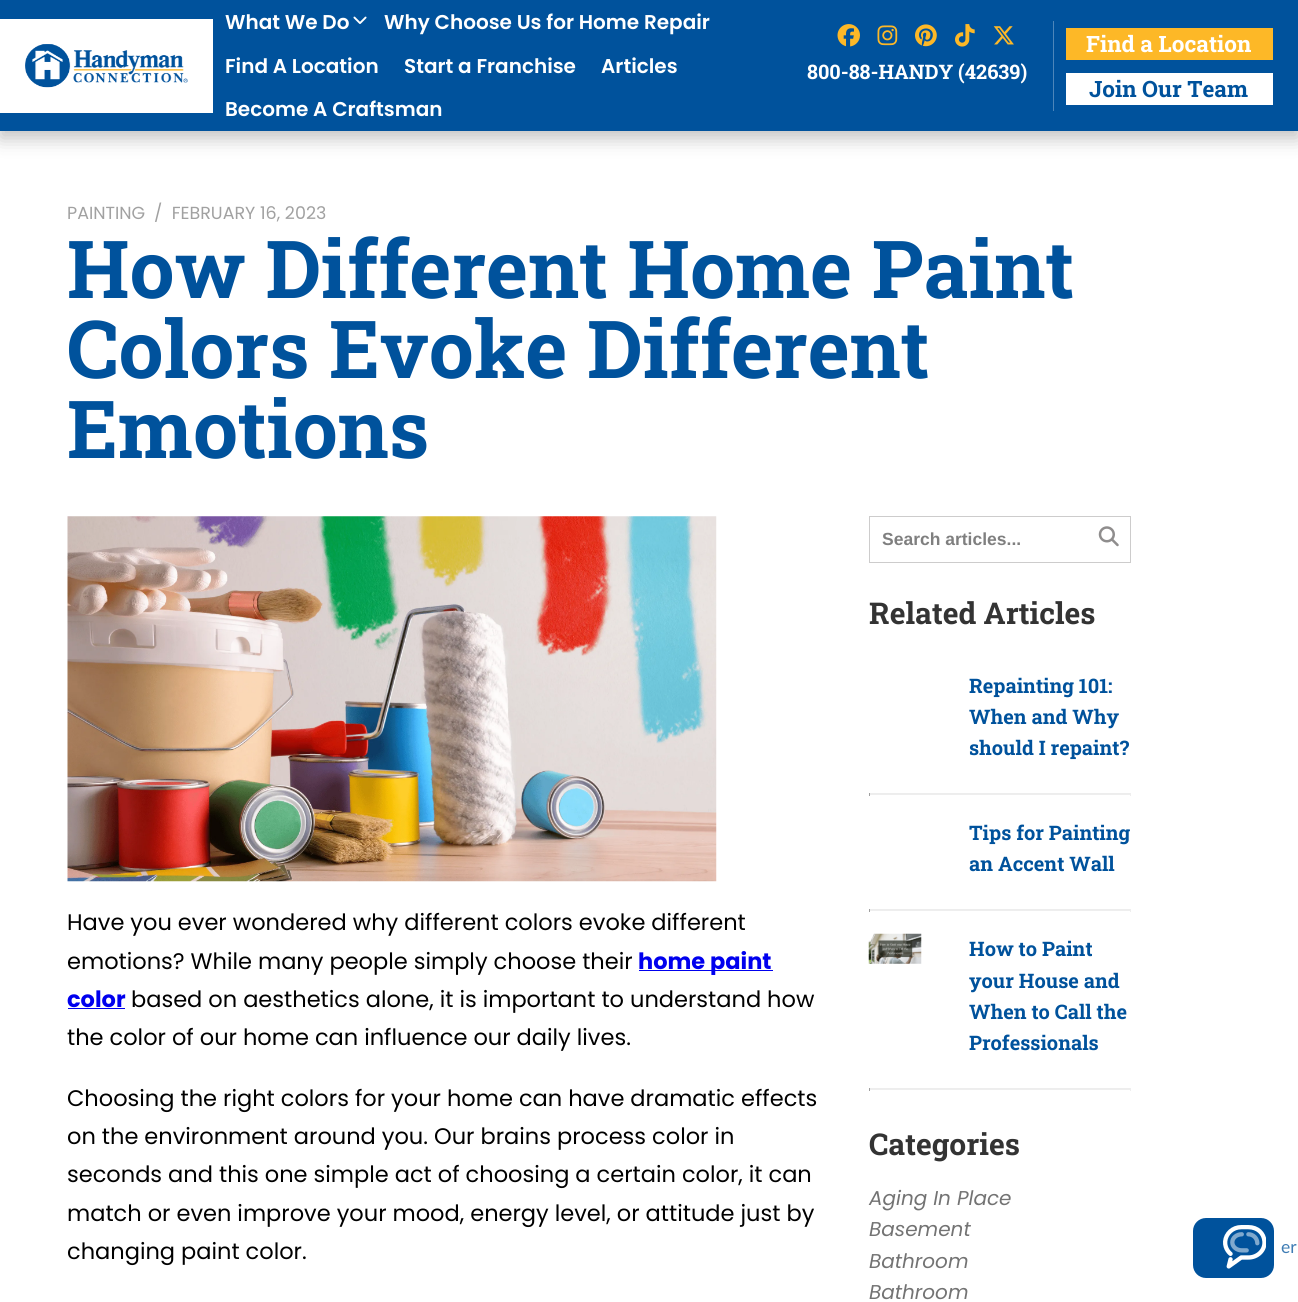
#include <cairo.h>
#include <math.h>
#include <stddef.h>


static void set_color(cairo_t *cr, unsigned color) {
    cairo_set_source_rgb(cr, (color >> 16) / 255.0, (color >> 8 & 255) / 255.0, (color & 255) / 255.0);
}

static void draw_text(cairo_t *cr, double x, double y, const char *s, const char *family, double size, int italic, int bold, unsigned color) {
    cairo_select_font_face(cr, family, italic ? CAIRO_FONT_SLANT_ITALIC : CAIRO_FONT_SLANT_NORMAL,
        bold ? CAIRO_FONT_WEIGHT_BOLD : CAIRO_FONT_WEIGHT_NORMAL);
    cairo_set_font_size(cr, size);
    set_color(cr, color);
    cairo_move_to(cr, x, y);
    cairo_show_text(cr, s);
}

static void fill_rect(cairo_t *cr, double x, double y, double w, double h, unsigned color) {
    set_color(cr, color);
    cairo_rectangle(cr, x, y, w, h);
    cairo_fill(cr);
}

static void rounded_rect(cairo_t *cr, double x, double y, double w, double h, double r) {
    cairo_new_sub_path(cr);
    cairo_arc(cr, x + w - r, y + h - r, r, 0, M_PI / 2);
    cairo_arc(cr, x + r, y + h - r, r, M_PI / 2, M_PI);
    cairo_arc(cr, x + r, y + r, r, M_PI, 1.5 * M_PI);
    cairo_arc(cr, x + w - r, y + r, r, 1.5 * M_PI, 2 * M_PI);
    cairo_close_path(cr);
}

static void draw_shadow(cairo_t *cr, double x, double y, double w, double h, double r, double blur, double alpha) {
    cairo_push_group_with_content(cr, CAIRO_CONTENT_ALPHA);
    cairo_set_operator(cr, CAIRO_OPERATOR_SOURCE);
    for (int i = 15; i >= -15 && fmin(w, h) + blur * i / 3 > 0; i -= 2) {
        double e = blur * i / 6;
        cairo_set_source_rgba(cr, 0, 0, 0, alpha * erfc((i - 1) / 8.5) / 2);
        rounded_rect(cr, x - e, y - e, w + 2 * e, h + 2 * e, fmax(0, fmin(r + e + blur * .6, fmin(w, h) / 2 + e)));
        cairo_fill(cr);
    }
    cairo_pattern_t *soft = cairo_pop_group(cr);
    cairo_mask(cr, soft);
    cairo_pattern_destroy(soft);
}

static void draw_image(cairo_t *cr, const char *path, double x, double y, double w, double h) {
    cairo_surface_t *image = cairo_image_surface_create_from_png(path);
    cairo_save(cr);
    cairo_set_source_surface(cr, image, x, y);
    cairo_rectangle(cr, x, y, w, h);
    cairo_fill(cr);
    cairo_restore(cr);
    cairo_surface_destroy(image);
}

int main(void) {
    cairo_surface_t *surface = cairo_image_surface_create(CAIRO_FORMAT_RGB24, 1298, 1302);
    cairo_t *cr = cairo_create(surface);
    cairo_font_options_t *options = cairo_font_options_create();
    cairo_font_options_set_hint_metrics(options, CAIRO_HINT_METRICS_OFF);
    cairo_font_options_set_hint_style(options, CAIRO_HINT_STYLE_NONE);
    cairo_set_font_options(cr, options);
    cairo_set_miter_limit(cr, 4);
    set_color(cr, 0xFFFFFF);
    cairo_paint(cr);
    set_color(cr, 0x000000);
    draw_shadow(cr, 0, 6, 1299, 132, 0, 9.5, 0.25);
    fill_rect(cr, 0, 0, 1298, 131, 0x00529C);
    fill_rect(cr, 0, 19, 213, 94, 0xFFFFFF);
    draw_image(cr, "assets/img1.png", 25, 44, 163, 44);
    draw_text(cr, 225, 29, "What We Do", "Poppins SemiBold", 20, 0, 0, 0xFFFFFF);
    draw_image(cr, "assets/img2.png", 353, 16, 14, 8);
    draw_text(cr, 384, 29, "Why Choose Us for Home Repair", "Poppins SemiBold", 20, 0, 0, 0xFFFFFF);
    draw_text(cr, 225, 73, "Find A Location", "Poppins SemiBold", 20, 0, 0, 0xFFFFFF);
    draw_text(cr, 404, 73, "Start a Franchise", "Poppins SemiBold", 20, 0, 0, 0xFFFFFF);
    draw_text(cr, 601, 73, "Articles", "Poppins SemiBold", 20, 0, 0, 0xFFFFFF);
    draw_text(cr, 225, 116, "Become A Craftsman", "Poppins SemiBold", 20, 0, 0, 0xFFFFFF);
    draw_image(cr, "assets/img3.png", 837, 24, 23, 23);
    draw_image(cr, "assets/img4.png", 877, 25, 21, 21);
    draw_image(cr, "assets/img5.png", 915, 24, 22, 23);
    draw_image(cr, "assets/img6.png", 955, 24, 20, 23);
    draw_image(cr, "assets/img7.png", 993, 26, 21, 19);
    draw_text(cr, 807, 79, "800-88-HANDY (42639)", "Roboto Slab", 20, 0, 1, 0xFFFFFF);
    fill_rect(cr, 1053, 21, 1, 90, 0x4D86BA);
    fill_rect(cr, 1066, 28, 207, 32, 0xFDB827);
    draw_text(cr, 1086, 52, "Find a Location", "Roboto Slab", 22.5, 0, 1, 0xFFFFFF);
    fill_rect(cr, 1066, 73, 207, 32, 0xFFFFFF);
    draw_text(cr, 1089, 97, "Join Our Team", "Roboto Slab", 22.5, 0, 1, 0x00529C);
    draw_text(cr, 67, 219, "PAINTING", "Poppins", 17.5, 0, 0, 0xA1A1A1);
    draw_text(cr, 154, 219, "/  FEBRUARY 16, 2023", "Poppins", 17.5, 0, 0, 0xA1A1A1);
    draw_text(cr, 67, 298, "How Different Home Paint", "Roboto Slab", 80, 0, 1, 0x00529C);
    draw_text(cr, 67, 378, "Colors Evoke Different", "Roboto Slab", 80, 0, 1, 0x00529C);
    draw_text(cr, 67, 458, "Emotions", "Roboto Slab", 80, 0, 1, 0x00529C);
    draw_image(cr, "assets/img8.png", 67, 516, 650, 366);
    draw_text(cr, 67, 930, "Have you ever wondered why different colors evoke different", "Poppins", 22.5, 0, 0, 0x000000);
    draw_text(cr, 67, 969, "emotions? While many people simply choose their", "Poppins", 22.5, 0, 0, 0x000000);
    fill_rect(cr, 639, 970, 134, 1, 0x0000EE);
    draw_text(cr, 638, 969, "home paint", "Poppins", 22.5, 0, 1, 0x0000EE);
    draw_text(cr, 67, 1007, "color", "Poppins", 22.5, 0, 1, 0x0000EE);
    fill_rect(cr, 68, 1008, 57, 1, 0x0000EE);
    draw_text(cr, 131, 1007, "based on aesthetics alone, it is important to understand how", "Poppins", 22.5, 0, 0, 0x000000);
    draw_text(cr, 67, 1045, "the color of our home can influence our daily lives.", "Poppins", 22.5, 0, 0, 0x000000);
    draw_text(cr, 67, 1106, "Choosing the right colors for your home can have dramatic effects", "Poppins", 22.5, 0, 0, 0x000000);
    draw_text(cr, 67, 1144, "on the environment around you. Our brains process color in", "Poppins", 22.5, 0, 0, 0x000000);
    draw_text(cr, 67, 1182, "seconds and this one simple act of choosing a certain color, it can", "Poppins", 22.5, 0, 0, 0x000000);
    draw_text(cr, 67, 1221, "match or even improve your mood, energy level, or attitude just by", "Poppins", 22.5, 0, 0, 0x000000);
    draw_text(cr, 67, 1259, "changing paint color.", "Poppins", 22.5, 0, 0, 0x000000);
    cairo_rectangle(cr, 869.5, 516.5, 261, 46);
    set_color(cr, 0xCDCCCC);
    cairo_set_line_width(cr, 1);
    cairo_stroke(cr);
    draw_text(cr, 882, 545, "Search articles...", "Liberation Sans", 17.5, 0, 1, 0x7F7F7F);
    draw_image(cr, "assets/img9.png", 1098, 526, 21, 21);
    draw_text(cr, 869, 624, "Related Articles", "Roboto Slab", 30, 0, 1, 0x333333);
    draw_text(cr, 969, 693, "Repainting 101:", "Roboto Slab", 20, 0, 1, 0x00529C);
    draw_text(cr, 969, 724, "When and Why", "Roboto Slab", 20, 0, 1, 0x00529C);
    draw_text(cr, 969, 755, "should I repaint?", "Roboto Slab", 20, 0, 1, 0x00529C);
    fill_rect(cr, 869, 793, 262, 1, 0xEDEDED);
    fill_rect(cr, 1130, 793, 1, 3, 0xEEEEEE);
    fill_rect(cr, 869, 794, 262, 1, 0xEEEEEE);
    fill_rect(cr, 869, 793, 1, 3, 0x9F9F9F);
    draw_text(cr, 969, 840, "Tips for Painting", "Roboto Slab", 20, 0, 1, 0x00529C);
    draw_text(cr, 969, 871, "an Accent Wall", "Roboto Slab", 20, 0, 1, 0x00529C);
    fill_rect(cr, 869, 909, 262, 1, 0xEDEDED);
    fill_rect(cr, 1130, 909, 1, 3, 0xEEEEEE);
    fill_rect(cr, 869, 910, 262, 1, 0xEEEEEE);
    fill_rect(cr, 869, 909, 1, 3, 0x9F9F9F);
    draw_image(cr, "assets/img10.png", 868, 933, 54, 31);
    draw_text(cr, 969, 956, "How to Paint", "Roboto Slab", 20, 0, 1, 0x00529C);
    draw_text(cr, 969, 988, "your House and", "Roboto Slab", 20, 0, 1, 0x00529C);
    draw_text(cr, 969, 1019, "When to Call the", "Roboto Slab", 20, 0, 1, 0x00529C);
    draw_text(cr, 969, 1050, "Professionals", "Roboto Slab", 20, 0, 1, 0x00529C);
    fill_rect(cr, 869, 1088, 262, 1, 0xEDEDED);
    fill_rect(cr, 1130, 1088, 1, 3, 0xEEEEEE);
    fill_rect(cr, 869, 1089, 262, 1, 0xEEEEEE);
    fill_rect(cr, 869, 1088, 1, 3, 0x9F9F9F);
    draw_text(cr, 869, 1155, "Categories", "Roboto Slab", 30, 0, 1, 0x333333);
    draw_text(cr, 869, 1205, "Aging In Place", "Poppins", 20, 1, 0, 0x737373);
    draw_text(cr, 869, 1236, "Basement", "Poppins", 20, 1, 0, 0x737373);
    draw_text(cr, 869, 1268, "Bathroom", "Poppins", 20, 1, 0, 0x737373);
    draw_text(cr, 869, 1299, "Bathroom", "Poppins", 20, 1, 0, 0x737373);
    set_color(cr, 0x00529C);
    rounded_rect(cr, 1193, 1218, 81, 60, 13);
    cairo_fill(cr);
    draw_image(cr, "assets/img11.png", 1223, 1225, 43, 44);
    draw_text(cr, 1281, 1253, "er", "Lato", 17.5, 0, 0, 0x3E7CB4);
    cairo_surface_write_to_png(surface, "output.png");
    cairo_font_options_destroy(options);
    cairo_destroy(cr);
    cairo_surface_destroy(surface);
    return 0;
}
